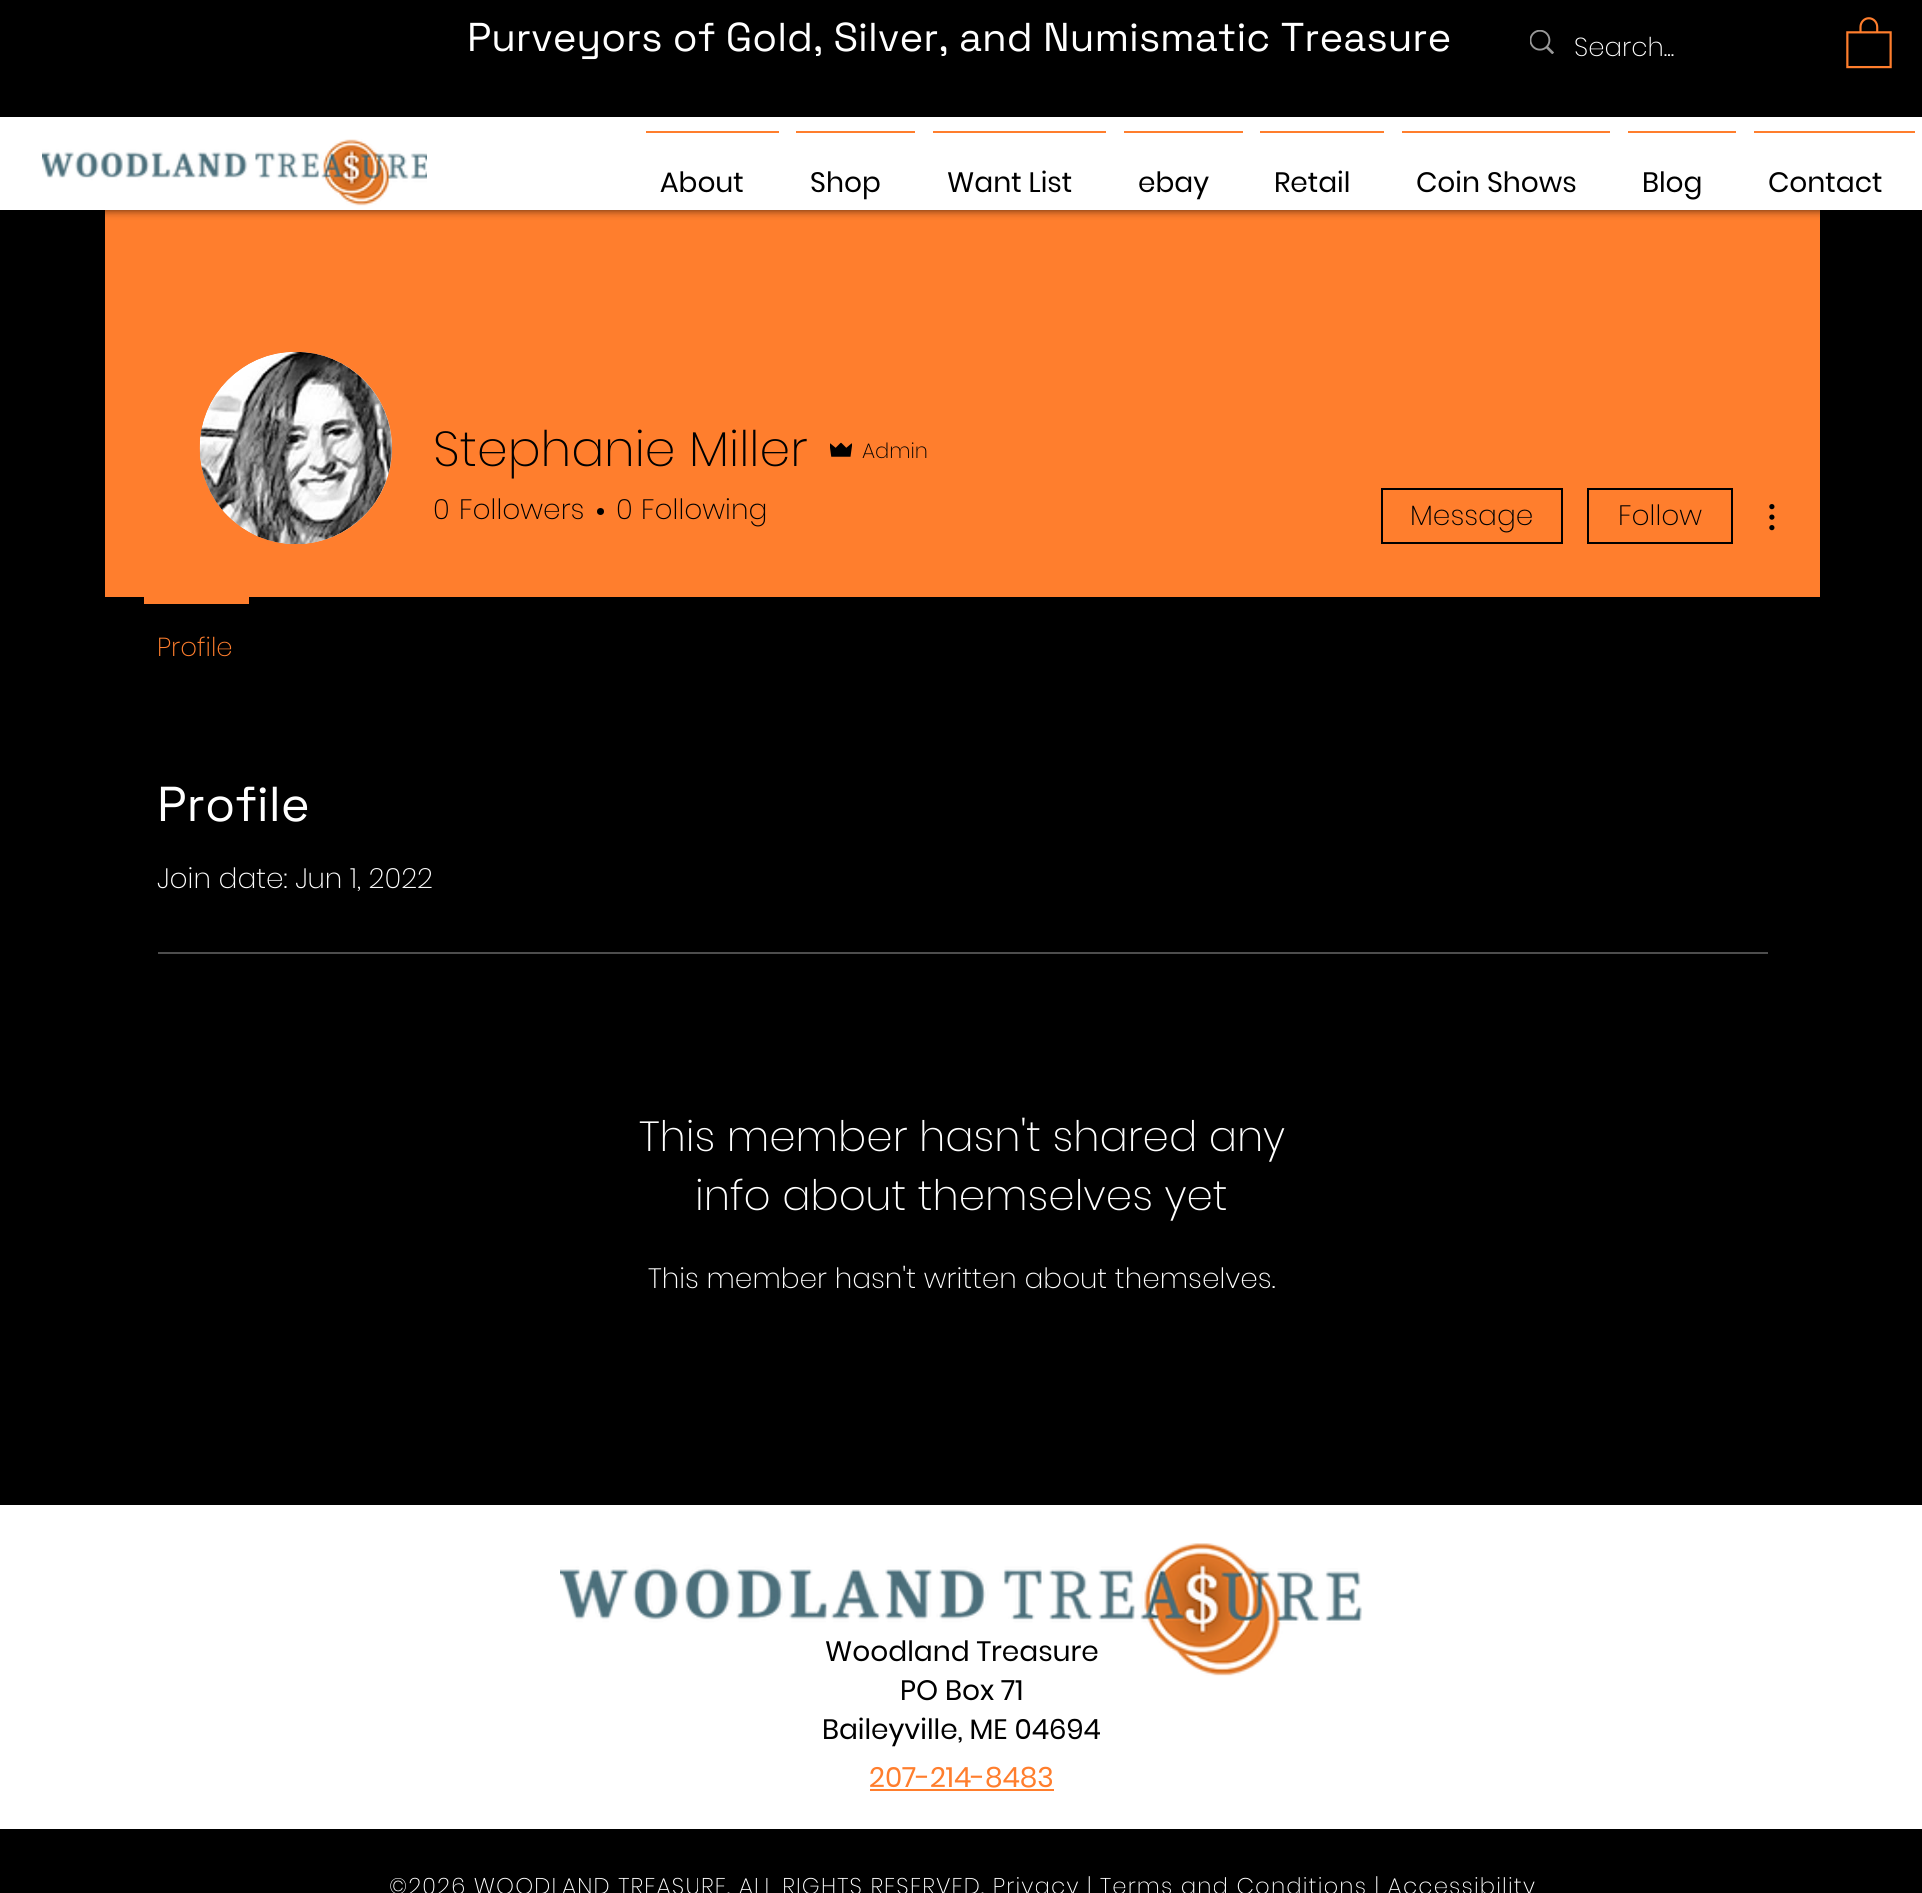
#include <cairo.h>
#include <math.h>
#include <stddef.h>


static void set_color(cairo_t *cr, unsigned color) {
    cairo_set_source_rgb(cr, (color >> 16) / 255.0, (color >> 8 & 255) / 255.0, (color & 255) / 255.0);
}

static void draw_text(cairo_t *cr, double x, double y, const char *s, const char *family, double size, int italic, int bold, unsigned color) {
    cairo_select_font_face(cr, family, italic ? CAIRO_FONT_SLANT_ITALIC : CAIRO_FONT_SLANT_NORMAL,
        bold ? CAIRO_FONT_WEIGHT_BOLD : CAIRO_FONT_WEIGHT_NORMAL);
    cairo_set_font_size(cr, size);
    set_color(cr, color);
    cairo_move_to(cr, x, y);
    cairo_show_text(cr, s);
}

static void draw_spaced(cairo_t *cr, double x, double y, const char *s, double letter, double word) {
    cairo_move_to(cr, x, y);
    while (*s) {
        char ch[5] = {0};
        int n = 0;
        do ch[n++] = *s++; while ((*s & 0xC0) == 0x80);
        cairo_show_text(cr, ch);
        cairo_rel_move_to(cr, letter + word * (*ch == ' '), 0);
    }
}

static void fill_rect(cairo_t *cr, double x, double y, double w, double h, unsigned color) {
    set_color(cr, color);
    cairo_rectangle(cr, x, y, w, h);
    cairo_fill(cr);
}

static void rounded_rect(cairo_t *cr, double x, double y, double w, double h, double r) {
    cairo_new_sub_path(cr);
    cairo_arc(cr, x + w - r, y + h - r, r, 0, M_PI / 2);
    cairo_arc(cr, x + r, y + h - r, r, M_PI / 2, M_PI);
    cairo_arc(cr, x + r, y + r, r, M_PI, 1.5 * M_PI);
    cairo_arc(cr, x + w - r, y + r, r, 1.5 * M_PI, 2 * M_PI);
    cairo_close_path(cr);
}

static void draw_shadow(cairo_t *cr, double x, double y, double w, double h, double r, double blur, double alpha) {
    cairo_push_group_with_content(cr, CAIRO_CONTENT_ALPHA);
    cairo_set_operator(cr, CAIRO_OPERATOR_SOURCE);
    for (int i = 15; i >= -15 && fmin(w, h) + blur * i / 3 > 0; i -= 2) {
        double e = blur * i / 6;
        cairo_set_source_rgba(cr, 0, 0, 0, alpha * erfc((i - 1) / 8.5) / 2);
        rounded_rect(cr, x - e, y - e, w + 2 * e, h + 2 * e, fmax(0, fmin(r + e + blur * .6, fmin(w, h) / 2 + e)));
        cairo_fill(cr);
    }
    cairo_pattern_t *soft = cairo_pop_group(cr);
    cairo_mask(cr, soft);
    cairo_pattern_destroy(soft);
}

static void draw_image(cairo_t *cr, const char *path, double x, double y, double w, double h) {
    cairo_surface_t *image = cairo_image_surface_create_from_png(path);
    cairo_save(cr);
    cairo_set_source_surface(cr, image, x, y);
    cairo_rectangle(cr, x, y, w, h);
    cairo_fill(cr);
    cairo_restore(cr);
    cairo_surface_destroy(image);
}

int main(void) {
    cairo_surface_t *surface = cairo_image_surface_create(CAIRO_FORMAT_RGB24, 1922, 1893);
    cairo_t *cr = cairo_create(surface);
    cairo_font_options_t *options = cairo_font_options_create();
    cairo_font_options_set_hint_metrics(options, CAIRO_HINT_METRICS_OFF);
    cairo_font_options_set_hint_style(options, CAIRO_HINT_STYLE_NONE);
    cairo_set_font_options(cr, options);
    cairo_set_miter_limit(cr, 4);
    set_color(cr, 0x000000);
    cairo_paint(cr);
    fill_rect(cr, 105, 210, 1715, 387, 0xFF7E2D);
    set_color(cr, 0x000000);
    draw_shadow(cr, 0, 0, 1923, 210, 0, 4.5, 0.7);
    draw_text(cr, 467, 51, "Purveyors of Gold, Silver, and Numismatic Treasure", "Space Grotesk", 40.25, 0, 0, 0xFFFFFF);
    draw_image(cr, "assets/img1.png", 1530, 30, 24, 24);
    draw_text(cr, 1574, 56, "Search...", "Poppins ExtraLight", 26, 0, 0, 0xFFFFFF);
    draw_image(cr, "assets/img2.png", 1846, 17, 46, 52);
    fill_rect(cr, 0, 117, 1922, 93, 0xFFFFFF);
    draw_image(cr, "assets/img3.png", 42, 139, 385, 67);
    fill_rect(cr, 646, 131, 133, 2, 0xFF7E2D);
    draw_text(cr, 660, 192, "About", "Poppins", 28, 0, 0, 0x000000);
    fill_rect(cr, 796, 131, 119, 2, 0xFF7E2D);
    draw_text(cr, 810, 192, "Shop", "Poppins", 28, 0, 0, 0x000000);
    fill_rect(cr, 933, 131, 173, 2, 0xFF7E2D);
    draw_text(cr, 947, 192, "Want List", "Poppins", 28, 0, 0, 0x000000);
    fill_rect(cr, 1124, 131, 119, 2, 0xFF7E2D);
    draw_text(cr, 1138, 192, "ebay", "Poppins", 28, 0, 0, 0x000000);
    fill_rect(cr, 1260, 131, 124, 2, 0xFF7E2D);
    draw_text(cr, 1274, 192, "Retail", "Poppins", 28, 0, 0, 0x000000);
    fill_rect(cr, 1402, 131, 208, 2, 0xFF7E2D);
    draw_text(cr, 1416, 192, "Coin Shows", "Poppins", 28, 0, 0, 0x000000);
    fill_rect(cr, 1628, 131, 108, 2, 0xFF7E2D);
    draw_text(cr, 1642, 192, "Blog", "Poppins", 28, 0, 0, 0x000000);
    fill_rect(cr, 1754, 131, 161, 2, 0xFF7E2D);
    draw_text(cr, 1768, 192, "Contact", "Poppins", 28, 0, 0, 0x000000);
    set_color(cr, 0xD8D8D8);
    cairo_new_path(cr);
    cairo_arc(cr, 296, 448, 96, 0, 2 * M_PI);
    cairo_fill(cr);
    draw_image(cr, "assets/img4.png", 199, 352, 193, 192);
    draw_text(cr, 433, 466, "Stephanie Miller", "Poppins ExtraLight", 49, 0, 0, 0x000000);
    draw_image(cr, "assets/img5.png", 830, 442, 22, 15);
    draw_text(cr, 862, 458, "Admin", "Poppins ExtraLight", 21, 0, 0, 0x000000);
    draw_text(cr, 433, 519, "0", "Poppins ExtraLight", 28, 0, 0, 0x000000);
    draw_text(cr, 459, 519, "Followers", "Poppins ExtraLight", 28, 0, 0, 0x000000);
    cairo_new_path(cr);
    cairo_arc(cr, 600.5, 511.5, 3.5, 0, 2 * M_PI);
    cairo_fill(cr);
    draw_text(cr, 616, 519, "0", "Poppins ExtraLight", 28, 0, 0, 0x000000);
    draw_text(cr, 641, 519, "Following", "Poppins ExtraLight", 28, 0, 0, 0x000000);
    cairo_rectangle(cr, 1382, 489, 180, 54);
    cairo_stroke(cr);
    draw_text(cr, 1410, 525, "Message", "Poppins ExtraLight", 28, 0, 0, 0x000000);
    cairo_rectangle(cr, 1588, 489, 144, 54);
    cairo_stroke(cr);
    draw_text(cr, 1618, 525, "Follow", "Poppins ExtraLight", 28, 0, 0, 0x000000);
    draw_image(cr, "assets/img6.png", 1769, 504, 6, 27);
    fill_rect(cr, 144, 597, 105, 7, 0xFF7E2D);
    draw_text(cr, 157, 656, "Profile", "Poppins ExtraLight", 26, 0, 0, 0xFF7E2D);
    draw_text(cr, 157, 821, "Profile", "Space Grotesk", 49, 0, 0, 0xFFFFFF);
    draw_text(cr, 157, 888, "Join date: Jun 1, 2022", "Poppins ExtraLight", 28, 0, 0, 0xFFFFFF);
    fill_rect(cr, 158, 952, 1610, 2, 0x4D4D4D);
    draw_text(cr, 639, 1151, "This member hasn't shared any", "Poppins ExtraLight", 42, 0, 0, 0xFFFFFF);
    draw_text(cr, 695, 1210, "info about themselves yet", "Poppins ExtraLight", 42, 0, 0, 0xFFFFFF);
    draw_text(cr, 648, 1288, "This member hasn't written about themselves.", "Poppins ExtraLight", 28, 0, 0, 0xFFFFFF);
    fill_rect(cr, 0, 1505, 1922, 324, 0xFFFFFF);
    draw_image(cr, "assets/img7.png", 560, 1543, 802, 133);
    draw_text(cr, 825, 1661, "Woodland Treasure", "Poppins", 28, 0, 0, 0x000000);
    draw_text(cr, 900, 1700, "PO Box 71", "Poppins", 28, 0, 0, 0x000000);
    draw_text(cr, 822, 1739, "Baileyville, ME 04694", "Poppins", 28, 0, 0, 0x000000);
    draw_text(cr, 869, 1787, "207-214-8483", "Poppins", 28, 0, 0, 0xFF7E2D);
    fill_rect(cr, 870, 1789, 184, 2, 0xFF7E2D);
    cairo_select_font_face(cr, "Poppins ExtraLight", CAIRO_FONT_SLANT_NORMAL, CAIRO_FONT_WEIGHT_NORMAL);
    cairo_set_font_size(cr, 22.75);
    set_color(cr, 0xFFFFFF);
    draw_spaced(cr, 389, 1894, "©2026 WOODLAND TREASURE. ALL RIGHTS RESERVED. Privacy | Terms and Conditions | Accessibility", 1.15, 0);
    cairo_surface_write_to_png(surface, "output.png");
    cairo_font_options_destroy(options);
    cairo_destroy(cr);
    cairo_surface_destroy(surface);
    return 0;
}
